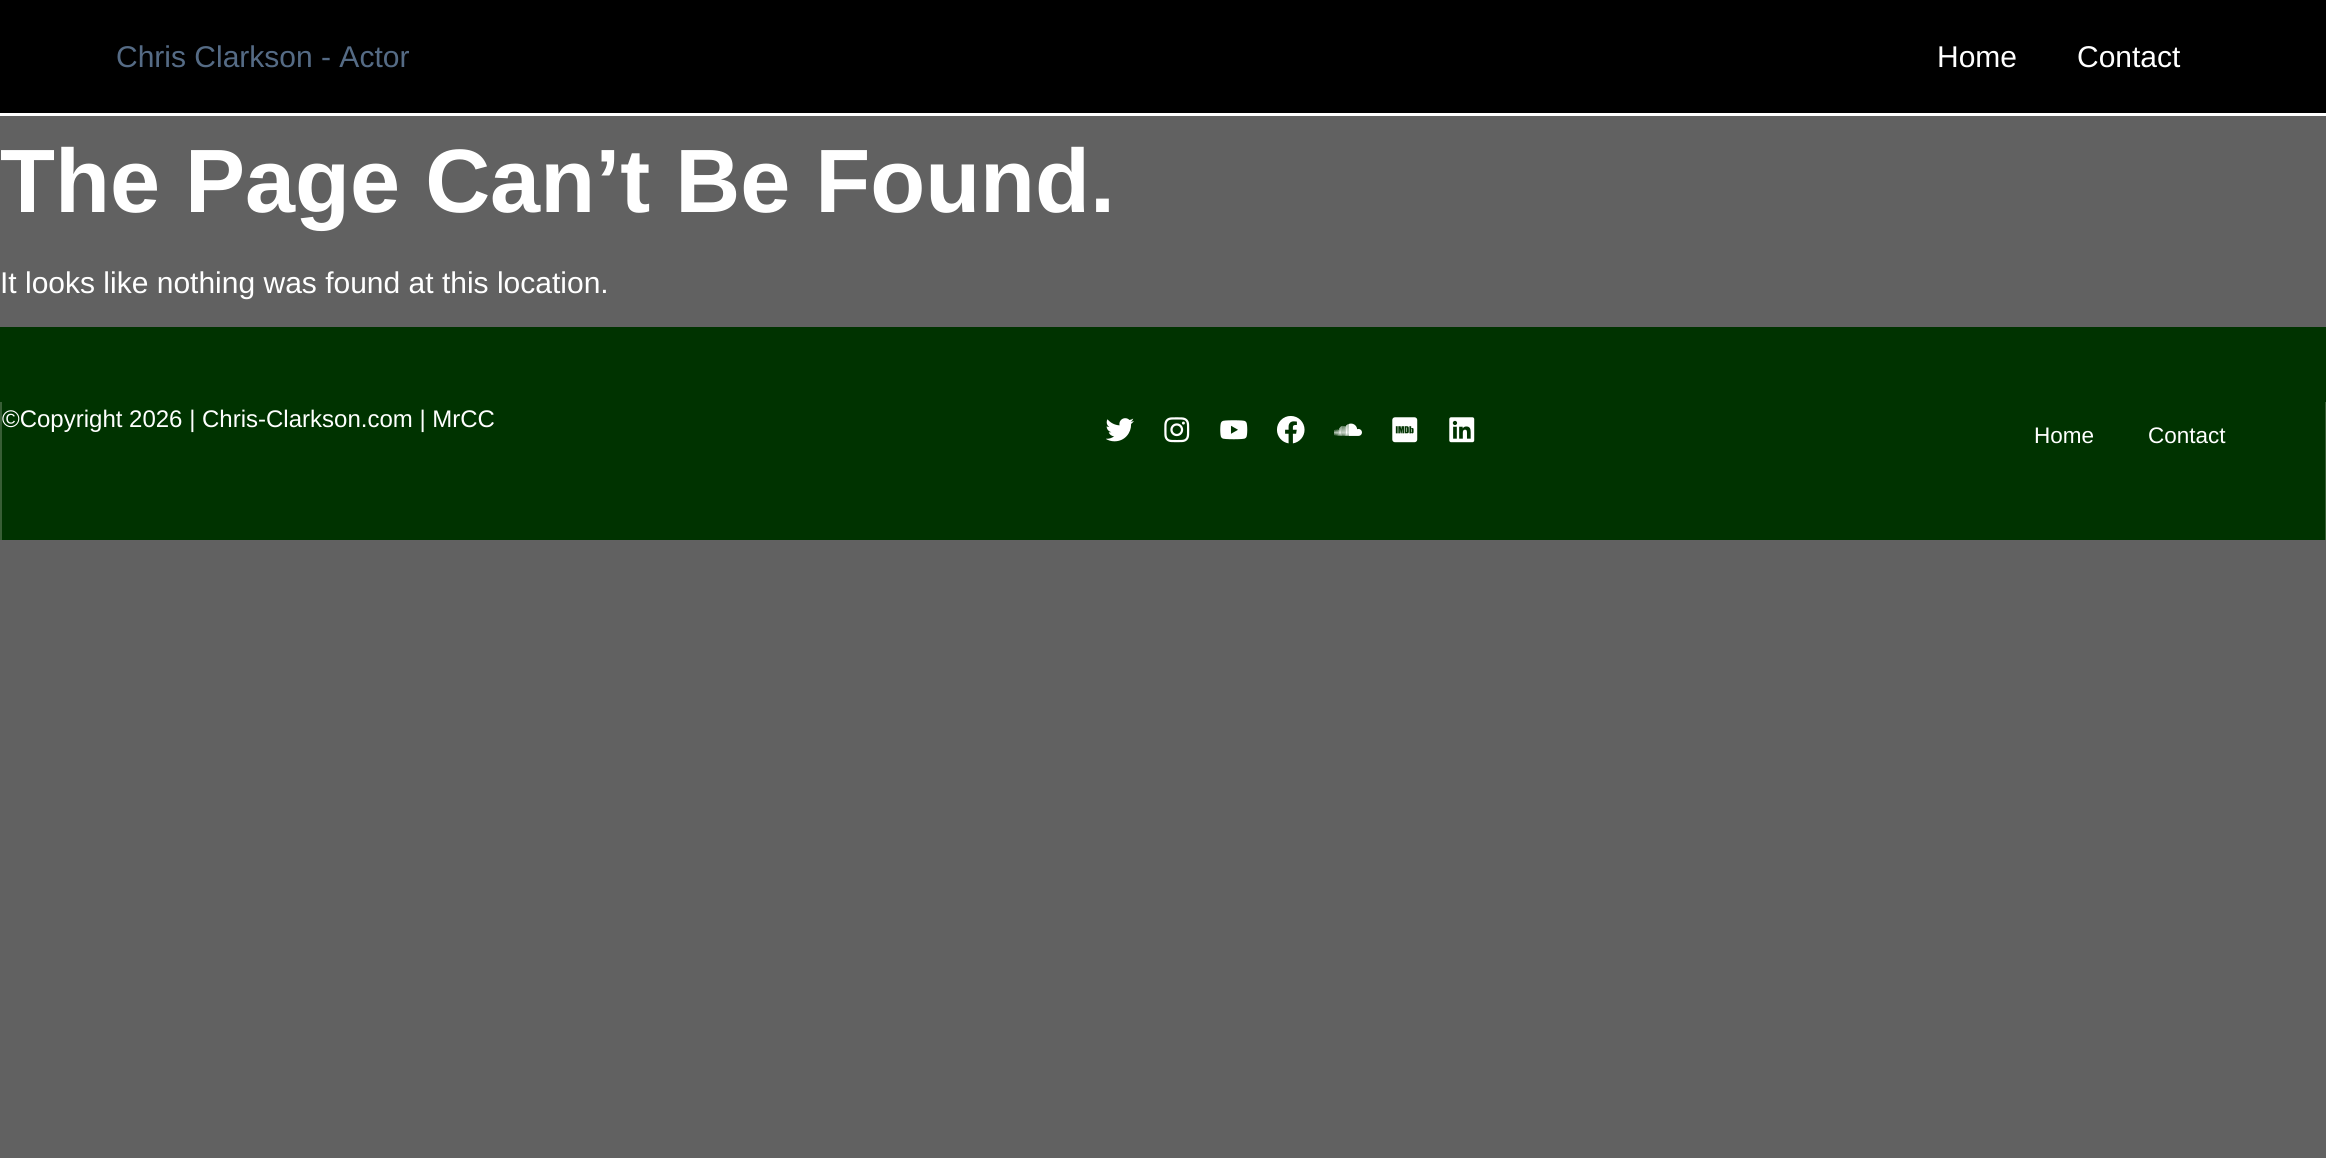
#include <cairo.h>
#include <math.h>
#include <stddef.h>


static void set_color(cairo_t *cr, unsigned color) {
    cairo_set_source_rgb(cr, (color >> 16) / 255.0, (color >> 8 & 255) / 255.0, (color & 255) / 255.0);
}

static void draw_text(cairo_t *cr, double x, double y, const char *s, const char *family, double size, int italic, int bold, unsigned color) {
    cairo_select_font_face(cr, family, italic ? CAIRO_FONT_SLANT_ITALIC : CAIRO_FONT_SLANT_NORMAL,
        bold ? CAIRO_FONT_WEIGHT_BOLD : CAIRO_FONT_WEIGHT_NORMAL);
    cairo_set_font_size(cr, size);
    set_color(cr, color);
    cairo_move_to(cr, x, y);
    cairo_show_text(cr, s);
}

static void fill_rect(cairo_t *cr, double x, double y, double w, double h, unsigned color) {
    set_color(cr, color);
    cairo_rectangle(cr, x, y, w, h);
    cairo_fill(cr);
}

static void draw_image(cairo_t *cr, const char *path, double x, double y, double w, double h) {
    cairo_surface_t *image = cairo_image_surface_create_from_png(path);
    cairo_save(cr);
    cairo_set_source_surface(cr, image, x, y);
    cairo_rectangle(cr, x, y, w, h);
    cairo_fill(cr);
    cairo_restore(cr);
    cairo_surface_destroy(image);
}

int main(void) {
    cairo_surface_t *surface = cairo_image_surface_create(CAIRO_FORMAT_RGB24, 2326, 1158);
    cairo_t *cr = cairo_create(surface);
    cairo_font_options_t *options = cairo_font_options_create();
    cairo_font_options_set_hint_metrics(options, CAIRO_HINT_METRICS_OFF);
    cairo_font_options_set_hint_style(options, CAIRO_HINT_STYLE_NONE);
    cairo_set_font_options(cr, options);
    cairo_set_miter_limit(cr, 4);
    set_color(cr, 0x616161);
    cairo_paint(cr);
    fill_rect(cr, 0, 113, 2326, 3, 0xFFFFFF);
    fill_rect(cr, 0, 0, 2326, 113, 0x000000);
    draw_text(cr, 116, 67, "Chris Clarkson - Actor", "Liberation Sans", 30, 0, 0, 0x556B85);
    draw_text(cr, 1937, 67, "Home", "Liberation Sans", 30, 0, 0, 0xFFFFFF);
    draw_text(cr, 2077, 67, "Contact", "Liberation Sans", 30, 0, 0, 0xFFFFFF);
    draw_text(cr, 0, 212, "The Page Can’t Be Found.", "Liberation Sans", 90, 0, 1, 0xFFFFFF);
    draw_text(cr, 0, 293, "It looks like nothing was found at this location.", "Liberation Sans", 30, 0, 0, 0xFFFFFF);
    fill_rect(cr, 0, 327, 2326, 213, 0x003300);
    fill_rect(cr, 2325, 402, 1, 138, 0x385E35);
    fill_rect(cr, 0, 402, 2, 138, 0x385E35);
    draw_text(cr, 2, 427, "©Copyright 2026 | Chris-Clarkson.com | MrCC", "Liberation Sans", 24, 0, 0, 0xFFFFFF);
    draw_image(cr, "assets/img1.png", 1106, 418, 28, 24);
    draw_image(cr, "assets/img2.png", 1164, 417, 26, 26);
    draw_image(cr, "assets/img3.png", 1220, 420, 28, 20);
    draw_image(cr, "assets/img4.png", 1277, 416, 28, 28);
    draw_image(cr, "assets/img5.png", 1334, 423, 28, 13);
    draw_image(cr, "assets/img6.png", 1392, 417, 26, 26);
    draw_image(cr, "assets/img7.png", 1449, 417, 26, 26);
    draw_text(cr, 2034, 443, "Home", "Liberation Sans", 22.5, 0, 0, 0xFFFFFF);
    draw_text(cr, 2148, 443, "Contact", "Liberation Sans", 22.5, 0, 0, 0xFFFFFF);
    cairo_surface_write_to_png(surface, "output.png");
    cairo_font_options_destroy(options);
    cairo_destroy(cr);
    cairo_surface_destroy(surface);
    return 0;
}
